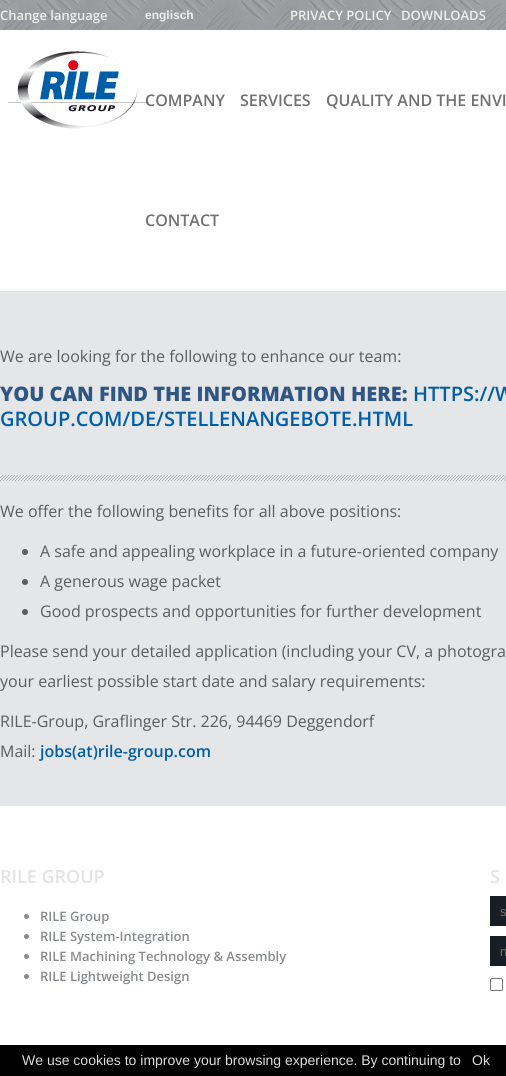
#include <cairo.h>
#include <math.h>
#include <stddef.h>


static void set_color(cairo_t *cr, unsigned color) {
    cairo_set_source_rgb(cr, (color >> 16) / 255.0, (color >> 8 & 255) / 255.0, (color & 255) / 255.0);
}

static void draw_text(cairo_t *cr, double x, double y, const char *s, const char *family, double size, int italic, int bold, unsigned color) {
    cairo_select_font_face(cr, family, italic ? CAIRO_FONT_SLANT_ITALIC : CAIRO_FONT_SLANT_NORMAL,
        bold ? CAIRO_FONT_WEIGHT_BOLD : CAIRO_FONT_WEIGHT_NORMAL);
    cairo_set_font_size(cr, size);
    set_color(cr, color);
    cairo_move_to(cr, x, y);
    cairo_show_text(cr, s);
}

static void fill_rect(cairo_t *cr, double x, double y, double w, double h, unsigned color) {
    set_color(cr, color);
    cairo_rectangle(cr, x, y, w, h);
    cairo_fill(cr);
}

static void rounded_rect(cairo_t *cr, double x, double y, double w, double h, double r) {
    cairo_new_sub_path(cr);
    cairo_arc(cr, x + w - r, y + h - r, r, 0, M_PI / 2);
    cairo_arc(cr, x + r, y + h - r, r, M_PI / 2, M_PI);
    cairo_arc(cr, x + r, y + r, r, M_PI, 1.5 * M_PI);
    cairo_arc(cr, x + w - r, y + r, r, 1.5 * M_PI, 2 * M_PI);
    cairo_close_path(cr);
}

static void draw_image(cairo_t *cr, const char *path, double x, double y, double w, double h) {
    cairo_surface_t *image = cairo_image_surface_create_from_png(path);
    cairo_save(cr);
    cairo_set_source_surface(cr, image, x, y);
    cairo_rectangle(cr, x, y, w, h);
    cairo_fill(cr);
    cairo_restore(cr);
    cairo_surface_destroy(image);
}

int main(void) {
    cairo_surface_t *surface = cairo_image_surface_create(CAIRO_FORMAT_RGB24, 506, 1076);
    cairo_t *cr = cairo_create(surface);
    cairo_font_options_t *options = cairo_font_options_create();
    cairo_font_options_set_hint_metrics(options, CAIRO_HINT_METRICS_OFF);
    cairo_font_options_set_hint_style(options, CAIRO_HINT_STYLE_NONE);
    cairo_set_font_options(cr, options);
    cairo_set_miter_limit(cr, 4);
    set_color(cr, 0xFFFFFF);
    cairo_paint(cr);
    fill_rect(cr, 0, 0, 506, 30, 0x989B9F);
    draw_image(cr, "assets/img1.png", 0, 0, 506, 30);
    draw_text(cr, 0, 20, "Change language", "Open Sans SemiBold", 13, 0, 0, 0xEFEFEF);
    draw_text(cr, 145, 19, "englisch", "Liberation Sans", 12, 0, 1, 0xEFEFEF);
    draw_text(cr, 290, 20, "PRIVACY POLICY", "Open Sans SemiBold", 13, 0, 0, 0xEFEFEF);
    draw_text(cr, 401, 20, "DOWNLOADS", "Open Sans SemiBold", 13, 0, 0, 0xEFEFEF);
    draw_text(cr, 145, 106, "COMPANY", "Open Sans SemiBold", 16, 0, 0, 0x717171);
    draw_image(cr, "assets/img2.png", 8, 51, 141, 78);
    draw_text(cr, 240, 106, "SERVICES", "Open Sans SemiBold", 16, 0, 0, 0x717171);
    draw_text(cr, 326, 106, "QUALITY AND THE ENVI", "Open Sans SemiBold", 16, 0, 0, 0x717171);
    draw_text(cr, 145, 226, "CONTACT", "Open Sans SemiBold", 16, 0, 0, 0x717171);
    fill_rect(cr, 0, 291, 506, 515, 0xE4E6E8);
    draw_text(cr, 0, 362, "We are looking for the following to enhance our team:", "Open Sans", 16, 0, 0, 0x585E63);
    draw_text(cr, 0, 401, "YOU CAN FIND THE INFORMATION HERE:", "Open Sans ExtraBold", 20, 0, 0, 0x2F5583);
    draw_text(cr, 413, 401, "HTTPS://W", "Open Sans SemiBold", 20, 0, 0, 0x005DA8);
    draw_text(cr, 0, 426, "GROUP.COM/DE/STELLENANGEBOTE.HTML", "Open Sans SemiBold", 20, 0, 0, 0x005DA8);
    draw_image(cr, "assets/img3.png", 0, 475, 506, 6);
    draw_text(cr, 0, 517, "We offer the following benefits for all above positions:", "Open Sans", 16, 0, 0, 0x585E63);
    cairo_new_path(cr);
    cairo_arc(cr, 25, 552, 3, 0, 2 * M_PI);
    cairo_fill(cr);
    draw_text(cr, 40, 557, "A safe and appealing workplace in a future-oriented company", "Open Sans", 16, 0, 0, 0x585E63);
    cairo_new_path(cr);
    cairo_arc(cr, 25, 582, 3, 0, 2 * M_PI);
    cairo_fill(cr);
    draw_text(cr, 40, 587, "A generous wage packet", "Open Sans", 16, 0, 0, 0x585E63);
    cairo_new_path(cr);
    cairo_arc(cr, 25, 612, 3, 0, 2 * M_PI);
    cairo_fill(cr);
    draw_text(cr, 40, 617, "Good prospects and opportunities for further development", "Open Sans", 16, 0, 0, 0x585E63);
    draw_text(cr, 0, 657, "Please send your detailed application (including your CV, a photogra", "Open Sans", 16, 0, 0, 0x585E63);
    draw_text(cr, 0, 687, "your earliest possible start date and salary requirements:", "Open Sans", 16, 0, 0, 0x585E63);
    draw_text(cr, 0, 727, "RILE-Group, Graflinger Str. 226, 94469 Deggendorf", "Open Sans", 16, 0, 0, 0x585E63);
    draw_text(cr, 0, 757, "Mail:", "Open Sans", 16, 0, 0, 0x585E63);
    draw_text(cr, 40, 757, "jobs(at)rile-group.com", "Open Sans SemiBold", 16, 0, 0, 0x005DA8);
    draw_text(cr, 0, 883, "RILE GROUP", "Open Sans SemiBold", 18, 0, 0, 0xE3E3E3);
    set_color(cr, 0x888B8E);
    cairo_new_path(cr);
    cairo_arc(cr, 26.5, 916.5, 2.5, 0, 2 * M_PI);
    cairo_fill(cr);
    draw_text(cr, 40, 921, "RILE Group", "Open Sans SemiBold", 13, 0, 0, 0x888B8E);
    cairo_new_path(cr);
    cairo_arc(cr, 26.5, 936.5, 2.5, 0, 2 * M_PI);
    cairo_fill(cr);
    draw_text(cr, 40, 941, "RILE System-Integration", "Open Sans SemiBold", 13, 0, 0, 0x888B8E);
    cairo_new_path(cr);
    cairo_arc(cr, 26.5, 956.5, 2.5, 0, 2 * M_PI);
    cairo_fill(cr);
    draw_text(cr, 40, 961, "RILE Machining Technology & Assembly", "Open Sans SemiBold", 13, 0, 0, 0x888B8E);
    cairo_new_path(cr);
    cairo_arc(cr, 26.5, 976.5, 2.5, 0, 2 * M_PI);
    cairo_fill(cr);
    draw_text(cr, 40, 981, "RILE Lightweight Design", "Open Sans SemiBold", 13, 0, 0, 0x888B8E);
    draw_text(cr, 490, 883, "S", "Open Sans SemiBold", 18, 0, 0, 0xE3E3E3);
    fill_rect(cr, 490, 896, 16, 30, 0x191E26);
    draw_text(cr, 500, 916, "s", "Liberation Sans", 13, 0, 0, 0x717171);
    fill_rect(cr, 490, 936, 16, 30, 0x191E26);
    draw_text(cr, 500, 956, "n", "Liberation Sans", 13, 0, 0, 0x717171);
    rounded_rect(cr, 490.5, 978.5, 12, 12, 1.5);
    set_color(cr, 0x767676);
    cairo_set_line_width(cr, 1);
    cairo_stroke(cr);
    fill_rect(cr, 0, 1045, 506, 31, 0x000000);
    draw_text(cr, 22, 1065, "We use cookies to improve your browsing experience. By continuing to", "Liberation Sans", 14, 0, 0, 0xDDDDDD);
    draw_text(cr, 472, 1065, "Ok", "Liberation Sans", 14, 0, 0, 0xDDDDDD);
    cairo_surface_write_to_png(surface, "output.png");
    cairo_font_options_destroy(options);
    cairo_destroy(cr);
    cairo_surface_destroy(surface);
    return 0;
}
